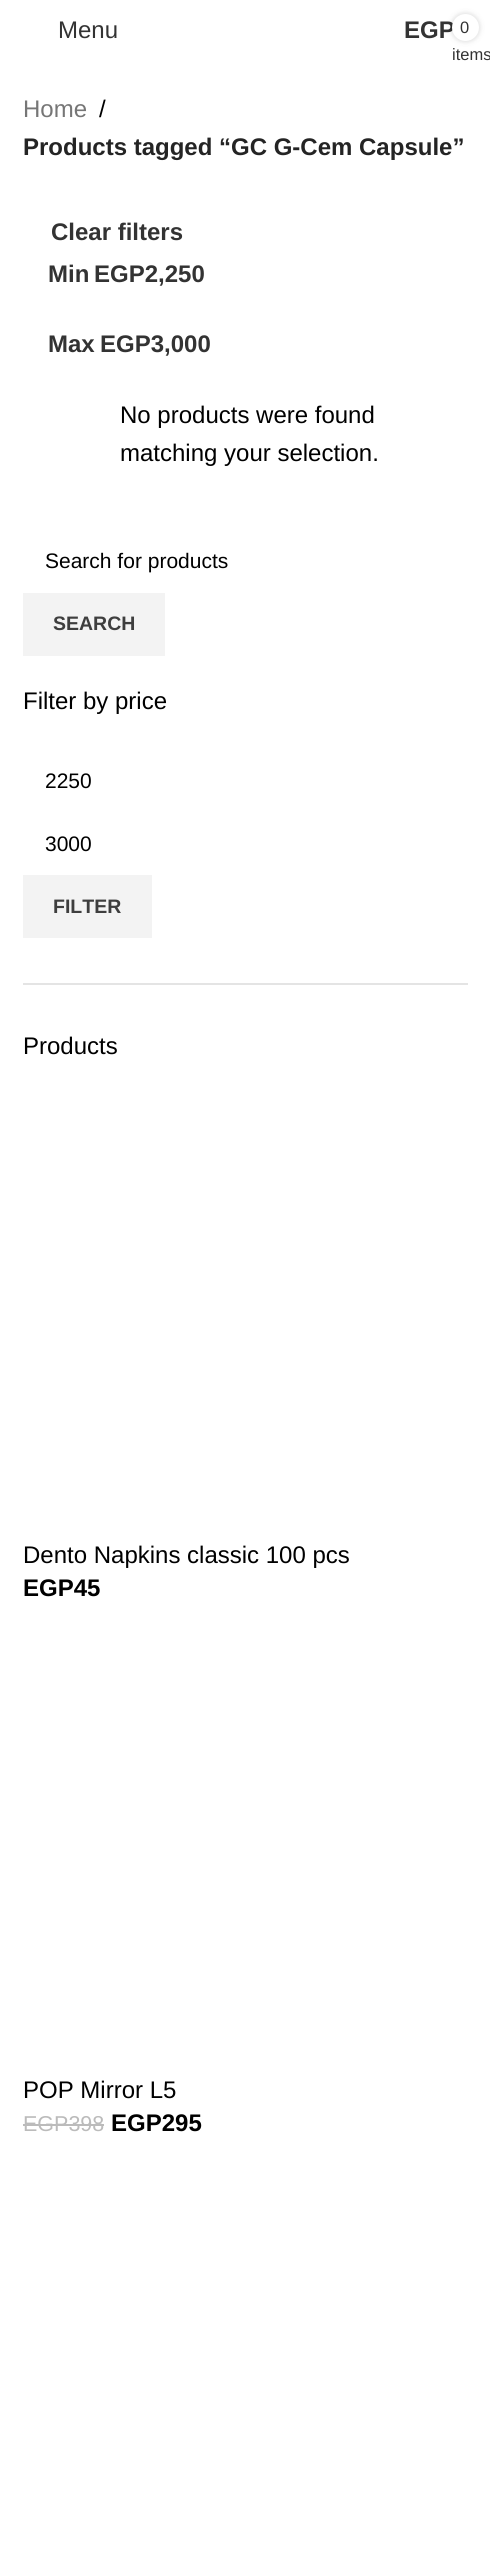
#include <cairo.h>
#include <math.h>
#include <stddef.h>


static void set_color(cairo_t *cr, unsigned color) {
    cairo_set_source_rgb(cr, (color >> 16) / 255.0, (color >> 8 & 255) / 255.0, (color & 255) / 255.0);
}

static void draw_text(cairo_t *cr, double x, double y, const char *s, const char *family, double size, int italic, int bold, unsigned color) {
    cairo_select_font_face(cr, family, italic ? CAIRO_FONT_SLANT_ITALIC : CAIRO_FONT_SLANT_NORMAL,
        bold ? CAIRO_FONT_WEIGHT_BOLD : CAIRO_FONT_WEIGHT_NORMAL);
    cairo_set_font_size(cr, size);
    set_color(cr, color);
    cairo_move_to(cr, x, y);
    cairo_show_text(cr, s);
}

static void fill_rect(cairo_t *cr, double x, double y, double w, double h, unsigned color) {
    set_color(cr, color);
    cairo_rectangle(cr, x, y, w, h);
    cairo_fill(cr);
}

static void rounded_rect(cairo_t *cr, double x, double y, double w, double h, double r) {
    cairo_new_sub_path(cr);
    cairo_arc(cr, x + w - r, y + h - r, r, 0, M_PI / 2);
    cairo_arc(cr, x + r, y + h - r, r, M_PI / 2, M_PI);
    cairo_arc(cr, x + r, y + r, r, M_PI, 1.5 * M_PI);
    cairo_arc(cr, x + w - r, y + r, r, 1.5 * M_PI, 2 * M_PI);
    cairo_close_path(cr);
}

static void draw_shadow(cairo_t *cr, double x, double y, double w, double h, double r, double blur, double alpha) {
    cairo_push_group_with_content(cr, CAIRO_CONTENT_ALPHA);
    cairo_set_operator(cr, CAIRO_OPERATOR_SOURCE);
    for (int i = 15; i >= -15 && fmin(w, h) + blur * i / 3 > 0; i -= 2) {
        double e = blur * i / 6;
        cairo_set_source_rgba(cr, 0, 0, 0, alpha * erfc((i - 1) / 8.5) / 2);
        rounded_rect(cr, x - e, y - e, w + 2 * e, h + 2 * e, fmax(0, fmin(r + e + blur * .6, fmin(w, h) / 2 + e)));
        cairo_fill(cr);
    }
    cairo_pattern_t *soft = cairo_pop_group(cr);
    cairo_mask(cr, soft);
    cairo_pattern_destroy(soft);
}

int main(void) {
    cairo_surface_t *surface = cairo_image_surface_create(CAIRO_FORMAT_RGB24, 490, 2566);
    cairo_t *cr = cairo_create(surface);
    cairo_font_options_t *options = cairo_font_options_create();
    cairo_font_options_set_hint_metrics(options, CAIRO_HINT_METRICS_OFF);
    cairo_font_options_set_hint_style(options, CAIRO_HINT_STYLE_NONE);
    cairo_set_font_options(cr, options);
    cairo_set_miter_limit(cr, 4);
    set_color(cr, 0xFFFFFF);
    cairo_paint(cr);
    draw_text(cr, 58, 38, "Menu", "Liberation Sans", 24, 0, 0, 0x333333);
    draw_text(cr, 404, 38, "EGP", "Liberation Sans", 24, 0, 1, 0x333333);
    set_color(cr, 0x000000);
    draw_shadow(cr, 452, 14, 27, 27, 13.5, 3, 0.17);
    set_color(cr, 0xFFFFFF);
    cairo_arc(cr, 465.5, 27.5, 13.5, 0, 2 * M_PI);
    cairo_fill(cr);
    draw_text(cr, 460, 33, "0", "Liberation Sans", 16.5, 0, 0, 0x333333);
    draw_text(cr, 452, 60, "items", "Liberation Sans", 16.5, 0, 0, 0x333333);
    draw_text(cr, 23, 117, "Home", "Liberation Sans", 24, 0, 0, 0x767676);
    draw_text(cr, 99, 117, "/", "Liberation Sans", 24, 0, 0, 0x000000);
    draw_text(cr, 23, 155, "Products tagged “GC G-Cem Capsule”", "Liberation Sans", 24, 0, 1, 0x242424);
    draw_text(cr, 51, 240, "Clear filters", "Liberation Sans", 24, 0, 1, 0x333333);
    draw_text(cr, 48, 282, "Min", "Liberation Sans", 24, 0, 1, 0x333333);
    draw_text(cr, 94, 282, "EGP2,250", "Liberation Sans", 24, 0, 1, 0x333333);
    draw_text(cr, 48, 352, "Max", "Liberation Sans", 24, 0, 1, 0x333333);
    draw_text(cr, 100, 352, "EGP3,000", "Liberation Sans", 24, 0, 1, 0x333333);
    draw_text(cr, 120, 423, "No products were found", "Liberation Sans", 24, 0, 0, 0x000000);
    draw_text(cr, 120, 461, "matching your selection.", "Liberation Sans", 24, 0, 0, 0x000000);
    draw_text(cr, 45, 568, "Search for products", "Liberation Sans", 21, 0, 0, 0x000000);
    fill_rect(cr, 23, 593, 142, 63, 0xF3F3F3);
    draw_text(cr, 53, 630, "SEARCH", "Liberation Sans", 19.5, 0, 1, 0x3E3E3E);
    fill_rect(cr, 23, 983, 445, 2, 0xE4E4E4);
    draw_text(cr, 23, 709, "Filter by price", "Liberation Sans", 24, 0, 0, 0x000000);
    draw_text(cr, 45, 788, "2250", "Liberation Sans", 21, 0, 0, 0x000000);
    draw_text(cr, 45, 851, "3000", "Liberation Sans", 21, 0, 0, 0x000000);
    fill_rect(cr, 23, 875, 129, 63, 0xF3F3F3);
    draw_text(cr, 53, 913, "FILTER", "Liberation Sans", 19.5, 0, 1, 0x3E3E3E);
    draw_text(cr, 23, 1054, "Products", "Liberation Sans", 24, 0, 0, 0x000000);
    draw_text(cr, 23, 1563, "Dento Napkins classic 100 pcs", "Liberation Sans", 24, 0, 0, 0x000000);
    draw_text(cr, 23, 1596, "EGP45", "Liberation Sans", 24, 0, 1, 0x000000);
    draw_text(cr, 23, 2098, "POP Mirror L5", "Liberation Sans", 24, 0, 0, 0x000000);
    draw_text(cr, 23, 2131, "EGP398", "Liberation Sans", 21.5, 0, 0, 0xBBBBBB);
    fill_rect(cr, 23, 2124, 81, 2, 0xBBBBBB);
    draw_text(cr, 111, 2131, "EGP295", "Liberation Sans", 24, 0, 1, 0x000000);
    cairo_surface_write_to_png(surface, "output.png");
    cairo_font_options_destroy(options);
    cairo_destroy(cr);
    cairo_surface_destroy(surface);
    return 0;
}
